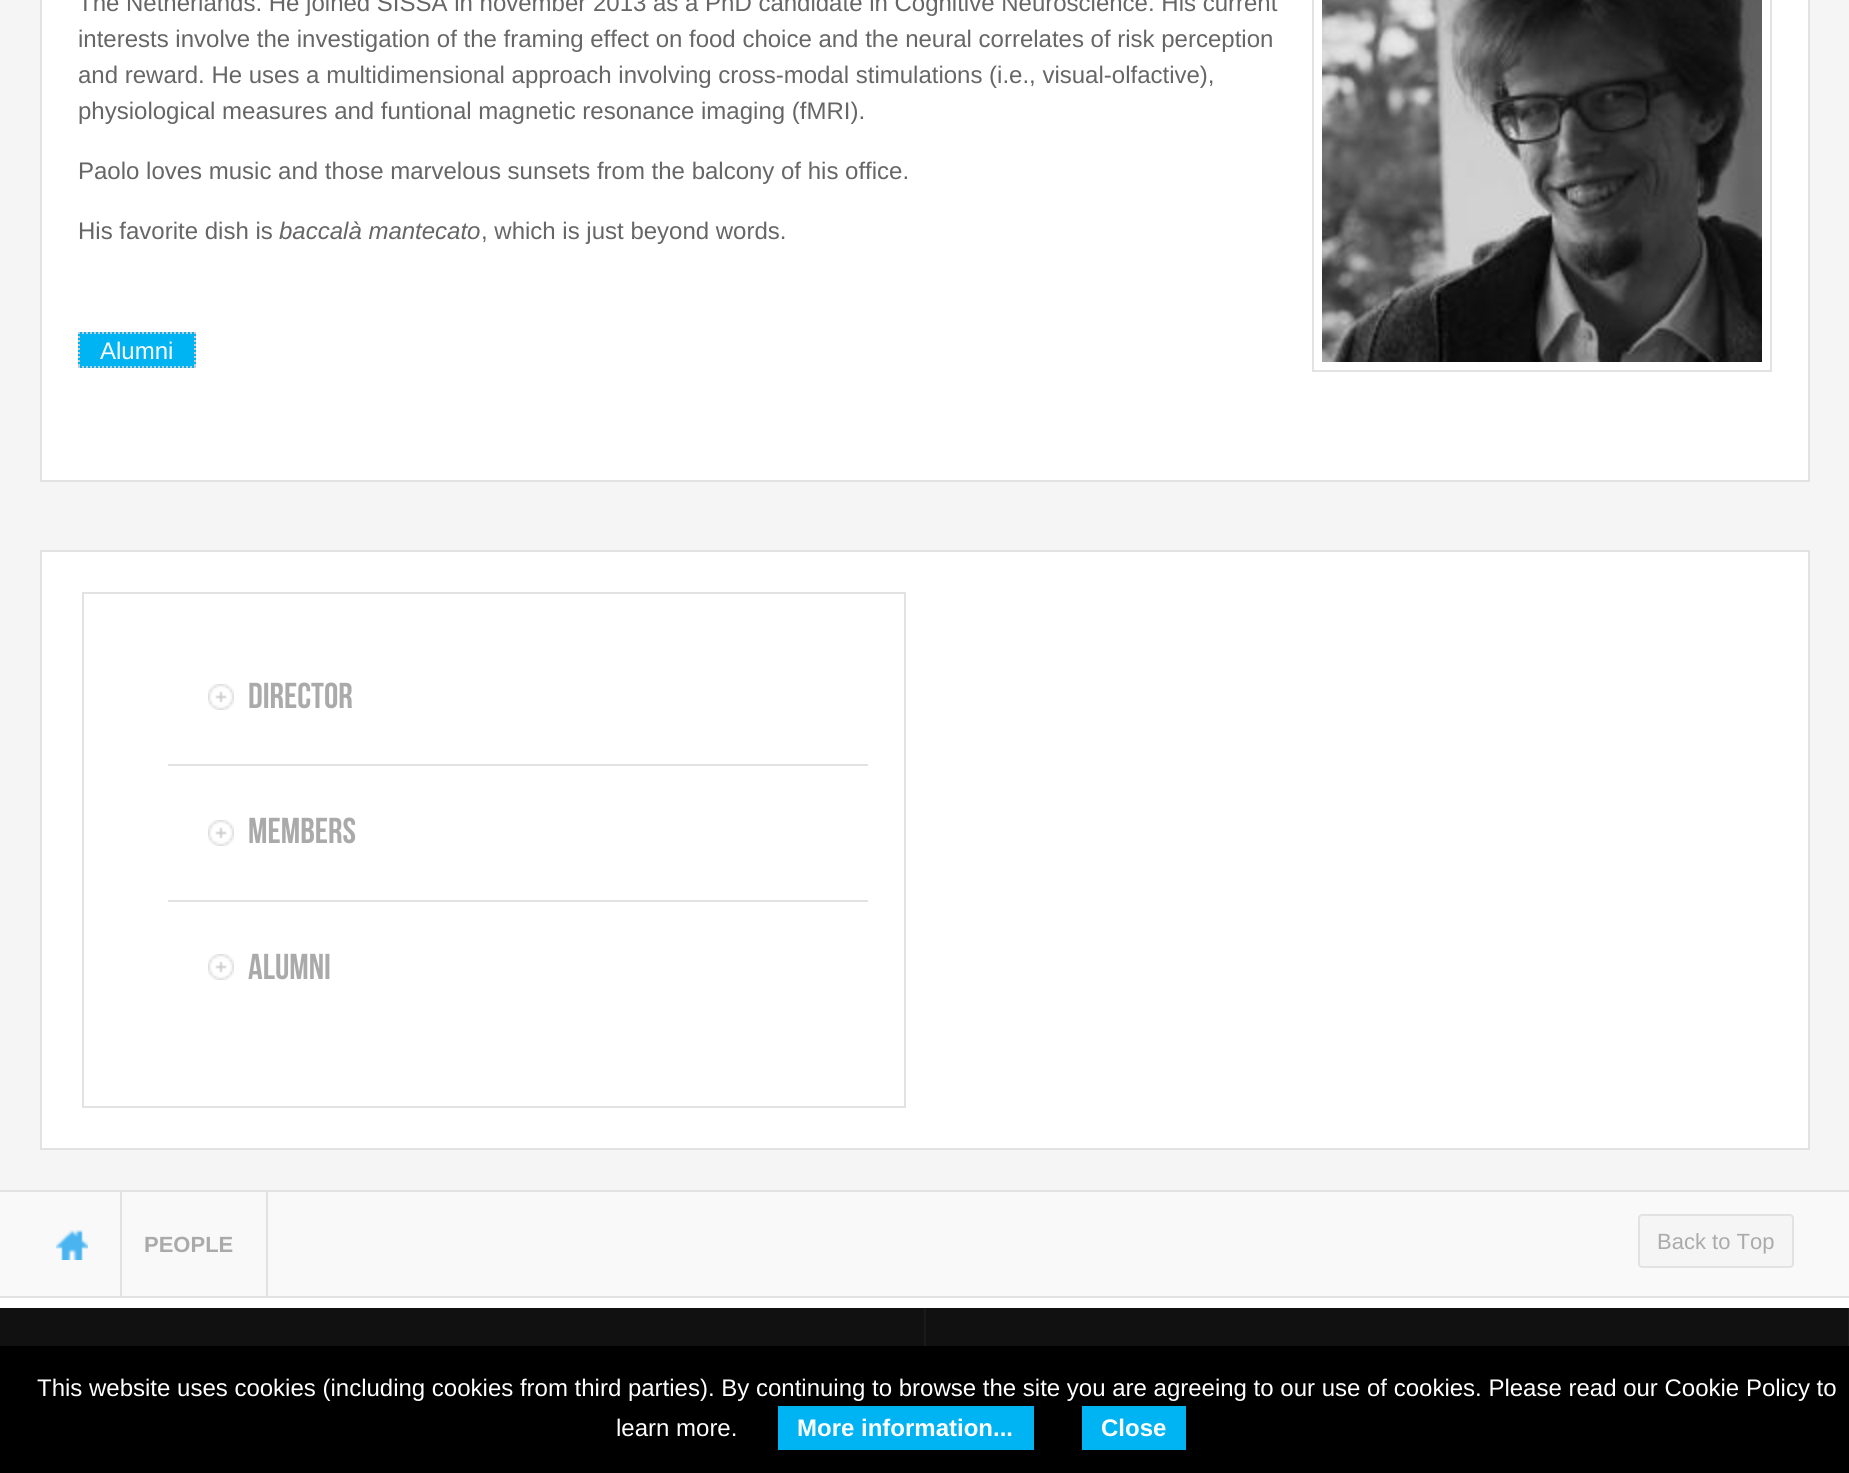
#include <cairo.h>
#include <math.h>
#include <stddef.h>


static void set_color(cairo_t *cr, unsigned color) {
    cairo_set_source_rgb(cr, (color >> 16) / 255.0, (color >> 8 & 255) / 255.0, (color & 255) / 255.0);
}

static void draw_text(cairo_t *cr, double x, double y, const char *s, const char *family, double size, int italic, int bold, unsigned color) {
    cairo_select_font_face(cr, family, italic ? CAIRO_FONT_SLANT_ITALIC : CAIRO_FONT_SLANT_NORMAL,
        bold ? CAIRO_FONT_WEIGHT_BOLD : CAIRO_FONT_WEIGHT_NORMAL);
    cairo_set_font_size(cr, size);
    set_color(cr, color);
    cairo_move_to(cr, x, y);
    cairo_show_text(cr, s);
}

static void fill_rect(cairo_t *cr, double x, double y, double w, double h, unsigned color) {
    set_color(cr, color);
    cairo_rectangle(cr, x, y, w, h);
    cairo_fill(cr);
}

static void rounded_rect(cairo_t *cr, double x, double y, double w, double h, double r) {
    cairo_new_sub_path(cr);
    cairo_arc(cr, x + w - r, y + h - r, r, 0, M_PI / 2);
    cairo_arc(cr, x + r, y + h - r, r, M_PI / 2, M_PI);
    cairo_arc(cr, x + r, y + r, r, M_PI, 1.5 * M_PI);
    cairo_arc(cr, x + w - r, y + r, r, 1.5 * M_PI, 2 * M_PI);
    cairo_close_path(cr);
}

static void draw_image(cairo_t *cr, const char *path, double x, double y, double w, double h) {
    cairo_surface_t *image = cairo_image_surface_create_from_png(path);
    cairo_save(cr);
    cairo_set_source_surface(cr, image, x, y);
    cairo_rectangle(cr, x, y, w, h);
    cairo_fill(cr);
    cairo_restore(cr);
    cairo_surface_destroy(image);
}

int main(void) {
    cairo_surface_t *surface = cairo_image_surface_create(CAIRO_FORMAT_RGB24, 1849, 1473);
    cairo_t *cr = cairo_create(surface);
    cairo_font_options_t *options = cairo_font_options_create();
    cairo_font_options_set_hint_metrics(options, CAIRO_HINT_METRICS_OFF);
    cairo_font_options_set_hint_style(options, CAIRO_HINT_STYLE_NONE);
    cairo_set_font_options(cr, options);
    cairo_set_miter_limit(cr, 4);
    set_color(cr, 0xF5F5F5);
    cairo_paint(cr);
    set_color(cr, 0xFFFFFF);
    cairo_rectangle(cr, 41, -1, 1768, 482);
    cairo_fill_preserve(cr);
    set_color(cr, 0xE2E2E2);
    cairo_stroke(cr);
    draw_text(cr, 78, 11, "The Netherlands. He joined SISSA in november 2013 as a PhD candidate in Cognitive Neuroscience. His current", "Liberation Sans", 24, 0, 0, 0x666666);
    draw_text(cr, 78, 47, "interests involve the investigation of the framing effect on food choice and the neural correlates of risk perception", "Liberation Sans", 24, 0, 0, 0x666666);
    draw_text(cr, 78, 83, "and reward. He uses a multidimensional approach involving cross-modal stimulations (i.e., visual-olfactive),", "Liberation Sans", 24, 0, 0, 0x666666);
    draw_text(cr, 78, 119, "physiological measures and funtional magnetic resonance imaging (fMRI).", "Liberation Sans", 24, 0, 0, 0x666666);
    draw_text(cr, 78, 179, "Paolo loves music and those marvelous sunsets from the balcony of his office.", "Liberation Sans", 24, 0, 0, 0x666666);
    draw_text(cr, 78, 239, "His favorite dish is", "Liberation Sans", 24, 0, 0, 0x666666);
    draw_text(cr, 279, 239, "baccalà mantecato", "Liberation Sans", 24, 1, 0, 0x666666);
    draw_text(cr, 481, 239, ", which is just beyond words.", "Liberation Sans", 24, 0, 0, 0x666666);
    cairo_rectangle(cr, 1313, -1, 458, 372);
    set_color(cr, 0xE2E2E2);
    cairo_stroke(cr);
    draw_image(cr, "assets/img1.png", 1322, 0, 440, 362);
    fill_rect(cr, 78, 332, 118, 36, 0x00B3F3);
    draw_text(cr, 100, 359, "Alumni", "Liberation Sans", 24, 0, 0, 0xFFFFFF);
    cairo_new_path(cr);
    cairo_move_to(cr, 78, 333);
    cairo_line_to(cr, 196, 333);
    set_color(cr, 0xCCCCCC);
    cairo_set_dash(cr, (double[]){2, 2}, 2, 0);
    cairo_stroke(cr);
    cairo_new_path(cr);
    cairo_move_to(cr, 195, 332);
    cairo_line_to(cr, 195, 368);
    cairo_stroke(cr);
    cairo_new_path(cr);
    cairo_move_to(cr, 78, 367);
    cairo_line_to(cr, 196, 367);
    cairo_stroke(cr);
    cairo_new_path(cr);
    cairo_move_to(cr, 79, 332);
    cairo_line_to(cr, 79, 368);
    cairo_stroke(cr);
    set_color(cr, 0xFFFFFF);
    cairo_rectangle(cr, 41, 551, 1768, 598);
    cairo_fill_preserve(cr);
    set_color(cr, 0xE2E2E2);
    cairo_set_dash(cr, NULL, 0, 0);
    cairo_stroke(cr);
    cairo_rectangle(cr, 83, 593, 822, 514);
    cairo_stroke(cr);
    fill_rect(cr, 168, 764, 700, 2, 0xE2E2E2);
    draw_image(cr, "assets/img2.png", 208, 684, 26, 26);
    draw_text(cr, 248, 708, "Director", "Bebas Neue", 36, 0, 0, 0xAAAAAA);
    fill_rect(cr, 168, 900, 700, 2, 0xE2E2E2);
    draw_image(cr, "assets/img2.png", 208, 820, 26, 26);
    draw_text(cr, 248, 843, "Members", "Bebas Neue", 36, 0, 0, 0xAAAAAA);
    draw_image(cr, "assets/img2.png", 208, 954, 26, 26);
    draw_text(cr, 248, 979, "Alumni", "Bebas Neue", 36, 0, 0, 0xAAAAAA);
    fill_rect(cr, 0, 1298, 1849, 10, 0xFFFFFF);
    fill_rect(cr, 0, 1192, 1849, 104, 0xF9F9F9);
    fill_rect(cr, 0, 1190, 1849, 2, 0xE2E2E2);
    fill_rect(cr, 0, 1296, 1849, 2, 0xE2E2E2);
    draw_image(cr, "assets/img3.png", 56, 1230, 32, 30);
    fill_rect(cr, 120, 1192, 2, 104, 0xE2E2E2);
    fill_rect(cr, 266, 1192, 2, 104, 0xE2E2E2);
    draw_text(cr, 144, 1252, "PEOPLE", "Liberation Sans", 22, 0, 1, 0xAAAAAA);
    set_color(cr, 0xF5F5F5);
    rounded_rect(cr, 1639, 1215, 154, 52, 3);
    cairo_fill_preserve(cr);
    set_color(cr, 0xE2E2E2);
    cairo_stroke(cr);
    draw_text(cr, 1657, 1249, "Back to Top", "Liberation Sans", 22, 0, 0, 0xAAAAAA);
    fill_rect(cr, 0, 1308, 1848, 38, 0x111111);
    fill_rect(cr, 924, 1308, 2, 38, 0x1A1A1A);
    fill_rect(cr, 1848, 1308, 1, 38, 0x1A1A1A);
    fill_rect(cr, 0, 1346, 1849, 127, 0x000000);
    draw_text(cr, 37, 1396, "This website uses cookies (including cookies from third parties). By continuing to browse the site you are agreeing to our use of cookies. Please read our Cookie Policy to", "Liberation Sans", 24, 0, 0, 0xFFFFFF);
    draw_text(cr, 616, 1436, "learn more.", "Liberation Sans", 24, 0, 0, 0xFFFFFF);
    fill_rect(cr, 778, 1406, 256, 44, 0x00B3F3);
    draw_text(cr, 797, 1436, "More information...", "Liberation Sans", 24, 0, 1, 0xFFFFFF);
    fill_rect(cr, 1082, 1406, 104, 44, 0x00B3F3);
    draw_text(cr, 1101, 1436, "Close", "Liberation Sans", 24, 0, 1, 0xFFFFFF);
    cairo_surface_write_to_png(surface, "output.png");
    cairo_font_options_destroy(options);
    cairo_destroy(cr);
    cairo_surface_destroy(surface);
    return 0;
}
